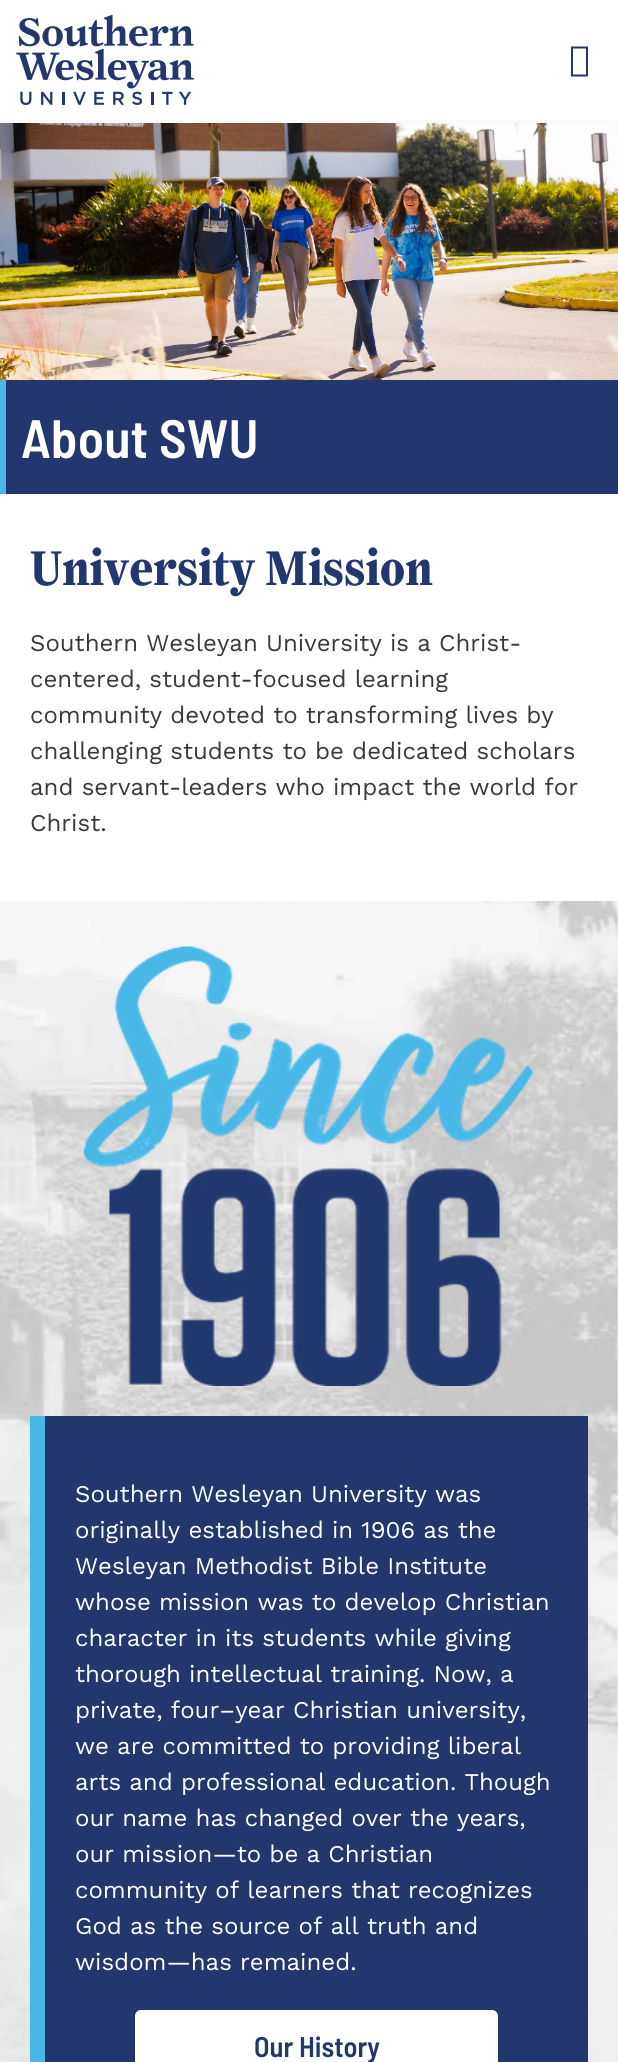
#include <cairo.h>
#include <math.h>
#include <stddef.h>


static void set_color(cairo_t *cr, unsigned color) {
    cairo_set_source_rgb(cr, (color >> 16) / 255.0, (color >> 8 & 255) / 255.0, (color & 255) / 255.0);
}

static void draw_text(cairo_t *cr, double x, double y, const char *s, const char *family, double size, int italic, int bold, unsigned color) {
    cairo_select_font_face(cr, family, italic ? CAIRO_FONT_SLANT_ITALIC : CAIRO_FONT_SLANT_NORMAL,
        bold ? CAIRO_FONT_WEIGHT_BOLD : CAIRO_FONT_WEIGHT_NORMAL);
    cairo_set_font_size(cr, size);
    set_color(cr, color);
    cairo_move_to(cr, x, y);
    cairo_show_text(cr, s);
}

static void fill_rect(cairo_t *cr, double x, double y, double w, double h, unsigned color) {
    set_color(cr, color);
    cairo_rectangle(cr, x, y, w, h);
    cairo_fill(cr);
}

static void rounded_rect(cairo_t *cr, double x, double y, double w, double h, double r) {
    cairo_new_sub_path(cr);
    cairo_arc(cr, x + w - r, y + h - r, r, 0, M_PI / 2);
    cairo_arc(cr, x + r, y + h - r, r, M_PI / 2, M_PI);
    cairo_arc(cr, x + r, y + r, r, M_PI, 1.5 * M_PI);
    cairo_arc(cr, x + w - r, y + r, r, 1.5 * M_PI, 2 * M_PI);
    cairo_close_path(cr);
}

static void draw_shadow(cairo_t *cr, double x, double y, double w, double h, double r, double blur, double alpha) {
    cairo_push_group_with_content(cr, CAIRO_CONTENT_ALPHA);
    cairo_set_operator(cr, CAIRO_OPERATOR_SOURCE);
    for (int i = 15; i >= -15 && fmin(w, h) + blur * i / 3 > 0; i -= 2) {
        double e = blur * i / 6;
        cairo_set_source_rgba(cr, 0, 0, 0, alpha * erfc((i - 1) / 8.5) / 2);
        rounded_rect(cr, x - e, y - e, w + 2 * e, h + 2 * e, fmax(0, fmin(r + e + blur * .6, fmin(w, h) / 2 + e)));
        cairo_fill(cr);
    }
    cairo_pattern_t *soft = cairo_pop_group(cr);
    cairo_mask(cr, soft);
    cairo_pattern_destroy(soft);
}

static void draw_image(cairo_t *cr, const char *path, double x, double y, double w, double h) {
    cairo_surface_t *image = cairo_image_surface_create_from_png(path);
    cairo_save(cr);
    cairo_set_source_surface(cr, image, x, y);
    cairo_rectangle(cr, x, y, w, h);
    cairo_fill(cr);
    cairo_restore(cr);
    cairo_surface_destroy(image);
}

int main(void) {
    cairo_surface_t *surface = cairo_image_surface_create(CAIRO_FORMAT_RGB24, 618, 2062);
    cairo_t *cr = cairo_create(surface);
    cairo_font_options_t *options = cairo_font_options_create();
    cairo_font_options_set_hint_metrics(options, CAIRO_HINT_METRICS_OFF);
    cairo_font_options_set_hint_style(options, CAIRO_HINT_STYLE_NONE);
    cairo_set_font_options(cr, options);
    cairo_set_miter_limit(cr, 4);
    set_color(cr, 0xFFFFFF);
    cairo_paint(cr);
    fill_rect(cr, 0, 120, 618, 3, 0xFAFAFA);
    draw_image(cr, "assets/img1.png", 16, 15, 178, 90);
    set_color(cr, 0x21376D);
    cairo_new_path(cr);
    cairo_move_to(cr, 571, 76.5);
    cairo_line_to(cr, 571, 46.5);
    cairo_line_to(cr, 588, 46.5);
    cairo_line_to(cr, 588, 76.5);
    cairo_close_path(cr);
    cairo_move_to(cr, 573, 74.5);
    cairo_line_to(cr, 586, 74.5);
    cairo_line_to(cr, 586, 48.5);
    cairo_line_to(cr, 573, 48.5);
    cairo_close_path(cr);
    cairo_fill(cr);
    draw_image(cr, "assets/img2.png", 0, 123, 618, 257);
    fill_rect(cr, 6, 380, 612, 114, 0x21376D);
    fill_rect(cr, 0, 380, 6, 114, 0x48B8E7);
    draw_text(cr, 21, 458, "About SWU", "Barlow Semi Condensed SemiBold", 54, 0, 0, 0xFFFFFF);
    draw_text(cr, 30, 585, "University Mission", "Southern", 48, 0, 1, 0x21376D);
    draw_text(cr, 30, 651, "Southern Wesleyan University is a Christ-", "Work Sans", 24, 0, 0, 0x393939);
    draw_text(cr, 30, 687, "centered, student-focused learning", "Work Sans", 24, 0, 0, 0x393939);
    draw_text(cr, 30, 723, "community devoted to transforming lives by", "Work Sans", 24, 0, 0, 0x393939);
    draw_text(cr, 30, 759, "challenging students to be dedicated scholars", "Work Sans", 24, 0, 0, 0x393939);
    draw_text(cr, 30, 795, "and servant-leaders who impact the world for", "Work Sans", 24, 0, 0, 0x393939);
    draw_text(cr, 30, 831, "Christ.", "Work Sans", 24, 0, 0, 0x393939);
    draw_image(cr, "assets/img3.png", 0, 901, 618, 1161);
    draw_image(cr, "assets/img4.png", 84, 946, 449, 440);
    fill_rect(cr, 45, 1416, 543, 646, 0x21376D);
    fill_rect(cr, 30, 1416, 15, 646, 0x48B8E7);
    draw_text(cr, 75, 1502, "Southern Wesleyan University was", "Work Sans", 24, 0, 0, 0xFFFFFF);
    draw_text(cr, 75, 1538, "originally established in 1906 as the", "Work Sans", 24, 0, 0, 0xFFFFFF);
    draw_text(cr, 75, 1574, "Wesleyan Methodist Bible Institute", "Work Sans", 24, 0, 0, 0xFFFFFF);
    draw_text(cr, 75, 1610, "whose mission was to develop Christian", "Work Sans", 24, 0, 0, 0xFFFFFF);
    draw_text(cr, 75, 1646, "character in its students while giving", "Work Sans", 24, 0, 0, 0xFFFFFF);
    draw_text(cr, 75, 1682, "thorough intellectual training. Now, a", "Work Sans", 24, 0, 0, 0xFFFFFF);
    draw_text(cr, 75, 1718, "private, four–year Christian university,", "Work Sans", 24, 0, 0, 0xFFFFFF);
    draw_text(cr, 75, 1754, "we are committed to providing liberal", "Work Sans", 24, 0, 0, 0xFFFFFF);
    draw_text(cr, 75, 1790, "arts and professional education. Though", "Work Sans", 24, 0, 0, 0xFFFFFF);
    draw_text(cr, 75, 1826, "our name has changed over the years,", "Work Sans", 24, 0, 0, 0xFFFFFF);
    draw_text(cr, 75, 1862, "our mission—to be a Christian", "Work Sans", 24, 0, 0, 0xFFFFFF);
    draw_text(cr, 75, 1898, "community of learners that recognizes", "Work Sans", 24, 0, 0, 0xFFFFFF);
    draw_text(cr, 75, 1934, "God as the source of all truth and", "Work Sans", 24, 0, 0, 0xFFFFFF);
    draw_text(cr, 75, 1970, "wisdom—has remained.", "Work Sans", 24, 0, 0, 0xFFFFFF);
    set_color(cr, 0x000000);
    draw_shadow(cr, 135, 2013, 363, 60, 6, 1.5, 0.2);
    set_color(cr, 0xFFFFFF);
    rounded_rect(cr, 135, 2010, 363, 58, 6);
    cairo_fill(cr);
    draw_text(cr, 254, 2057, "Our History", "Barlow Semi Condensed SemiBold", 28.5, 0, 0, 0x21376D);
    cairo_surface_write_to_png(surface, "output.png");
    cairo_font_options_destroy(options);
    cairo_destroy(cr);
    cairo_surface_destroy(surface);
    return 0;
}
